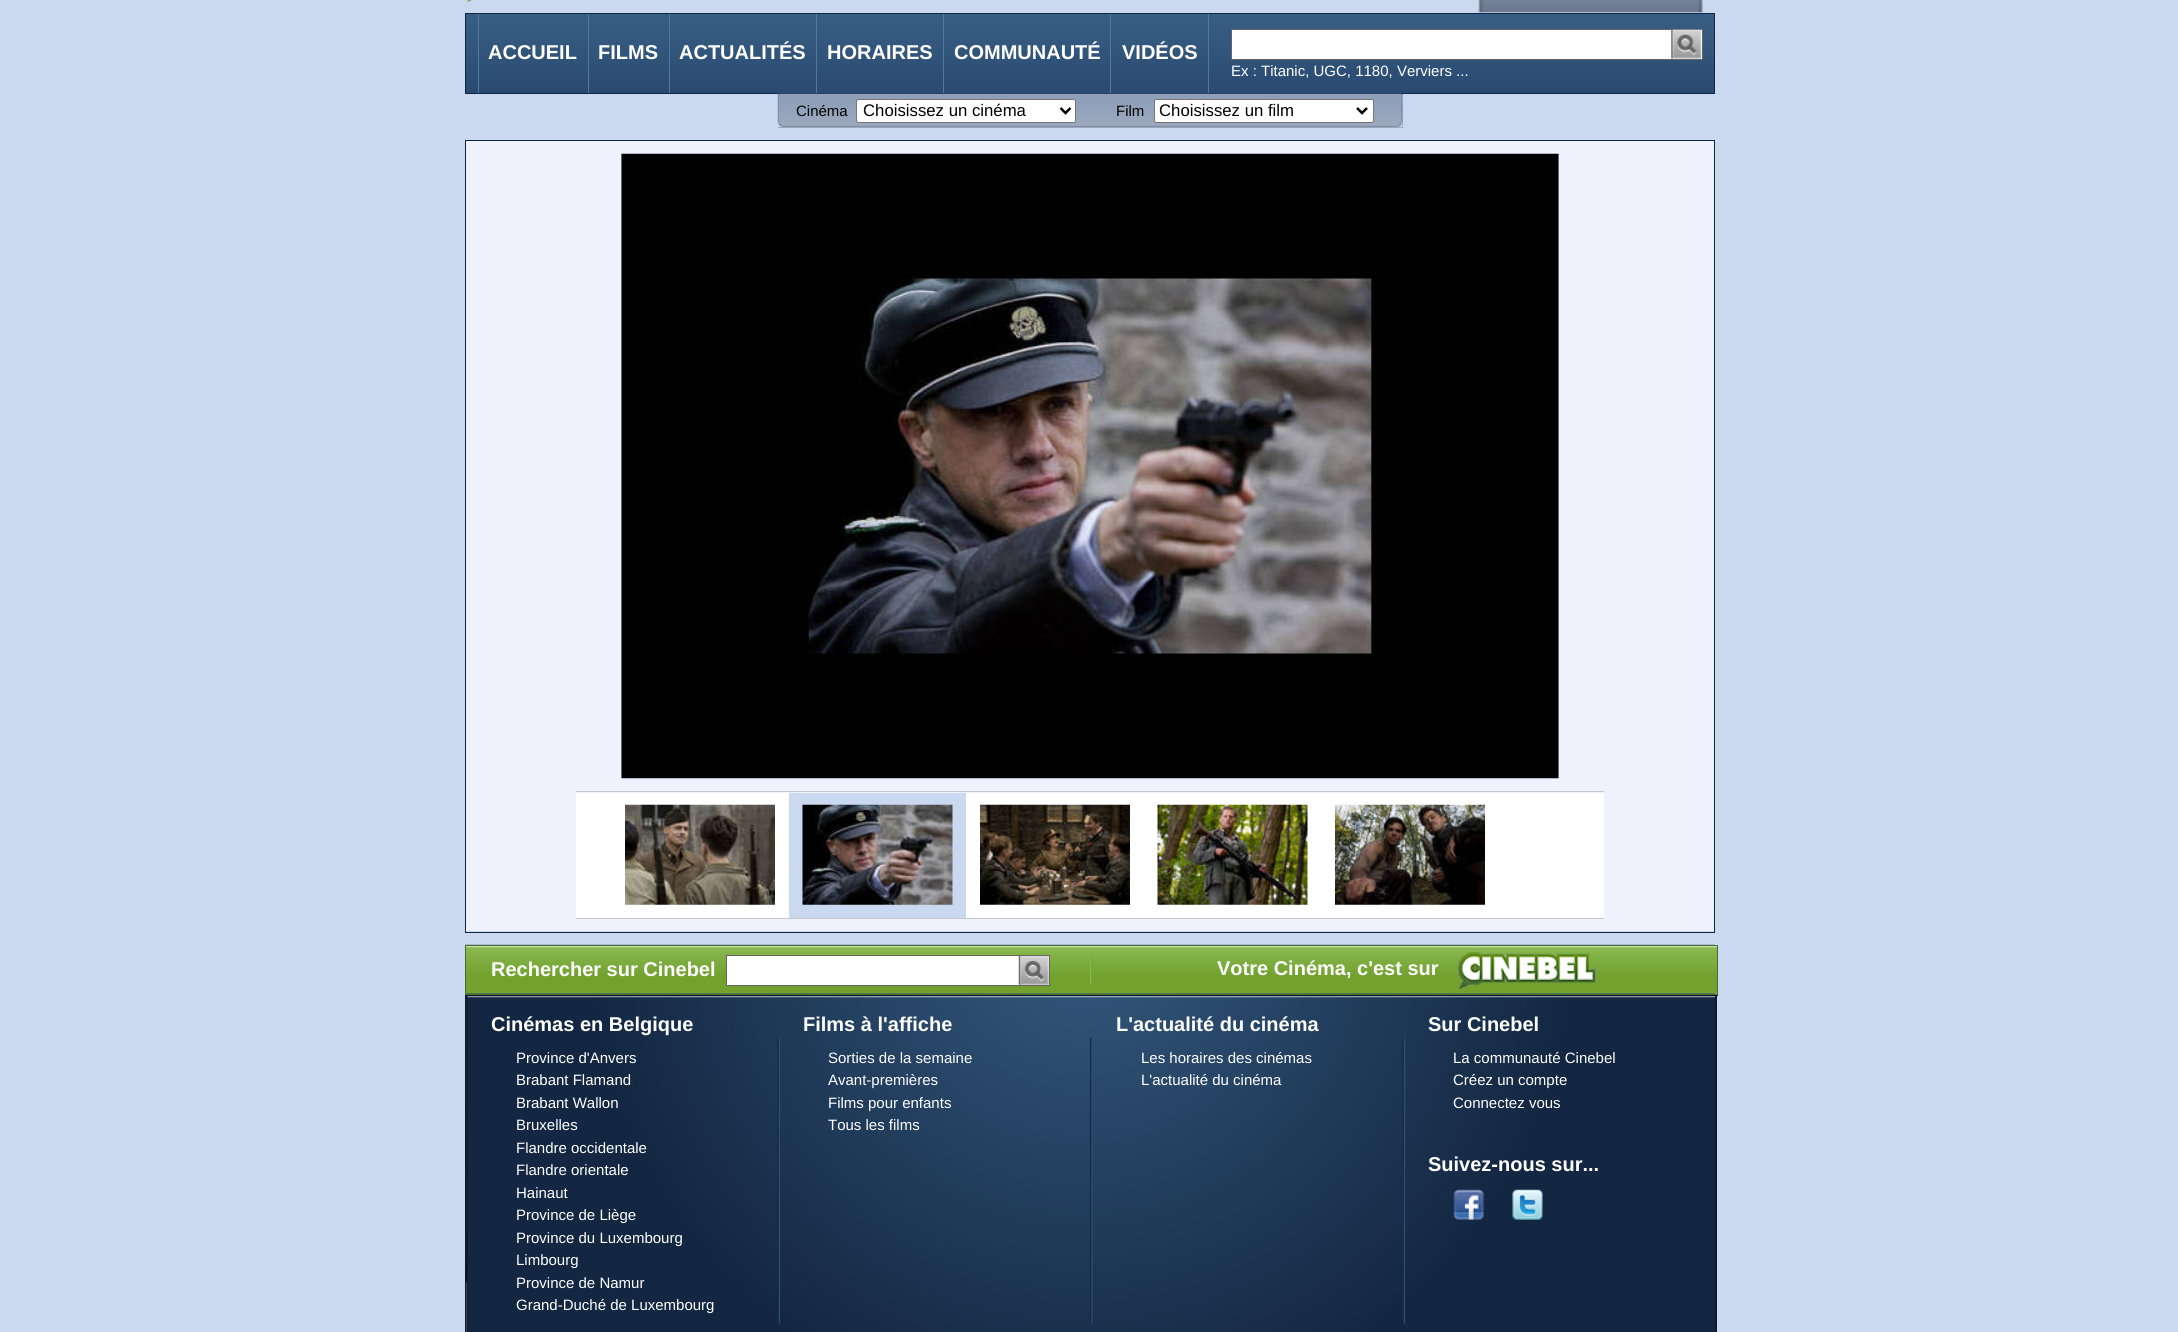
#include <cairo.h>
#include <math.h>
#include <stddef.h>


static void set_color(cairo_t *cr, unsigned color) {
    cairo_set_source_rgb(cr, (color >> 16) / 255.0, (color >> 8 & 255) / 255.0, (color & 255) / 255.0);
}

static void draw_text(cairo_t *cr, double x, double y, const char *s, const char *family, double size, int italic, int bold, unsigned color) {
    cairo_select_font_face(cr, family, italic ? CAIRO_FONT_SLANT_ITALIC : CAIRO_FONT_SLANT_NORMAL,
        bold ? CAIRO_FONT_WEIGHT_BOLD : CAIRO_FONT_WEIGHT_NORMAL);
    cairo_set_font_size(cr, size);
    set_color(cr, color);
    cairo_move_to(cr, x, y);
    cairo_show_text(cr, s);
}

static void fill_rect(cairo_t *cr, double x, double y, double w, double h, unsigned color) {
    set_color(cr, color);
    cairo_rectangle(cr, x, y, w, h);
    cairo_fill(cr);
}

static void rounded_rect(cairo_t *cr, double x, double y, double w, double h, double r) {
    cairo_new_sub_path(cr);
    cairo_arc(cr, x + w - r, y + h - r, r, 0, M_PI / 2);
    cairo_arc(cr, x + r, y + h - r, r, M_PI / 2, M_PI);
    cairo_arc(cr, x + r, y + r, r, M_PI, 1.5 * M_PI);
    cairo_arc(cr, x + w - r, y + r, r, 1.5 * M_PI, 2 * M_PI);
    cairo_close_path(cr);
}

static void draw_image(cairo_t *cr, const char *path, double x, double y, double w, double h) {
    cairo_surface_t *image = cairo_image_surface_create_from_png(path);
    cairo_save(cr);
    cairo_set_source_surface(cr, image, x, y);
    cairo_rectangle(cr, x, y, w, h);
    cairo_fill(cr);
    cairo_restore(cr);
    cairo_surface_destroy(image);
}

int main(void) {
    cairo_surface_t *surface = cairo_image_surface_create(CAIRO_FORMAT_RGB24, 2178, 1332);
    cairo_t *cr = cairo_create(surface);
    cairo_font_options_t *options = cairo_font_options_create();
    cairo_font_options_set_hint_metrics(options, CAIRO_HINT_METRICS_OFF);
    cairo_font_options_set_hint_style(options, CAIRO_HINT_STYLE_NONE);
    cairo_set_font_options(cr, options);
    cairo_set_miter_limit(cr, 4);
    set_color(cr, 0xCAD9EF);
    cairo_paint(cr);
    draw_image(cr, "assets/img1.png", 466, 0, 7, 3);
    draw_image(cr, "assets/img2.png", 1478, 0, 212, 13);
    draw_image(cr, "assets/img3.png", 1690, 0, 13, 13);
    draw_image(cr, "assets/img4.png", 466, 14, 1248, 79);
    cairo_rectangle(cr, 465.5, 13.5, 1249, 80);
    set_color(cr, 0x102645);
    cairo_set_line_width(cr, 1);
    cairo_stroke(cr);
    fill_rect(cr, 588, 14, 1, 79, 0x4F7BA0);
    fill_rect(cr, 478, 14, 1, 79, 0x4F7BA0);
    draw_text(cr, 488, 59, "ACCUEIL", "Liberation Sans", 20, 0, 1, 0xFFFFFF);
    fill_rect(cr, 669, 14, 1, 79, 0x4F7BA0);
    draw_text(cr, 598, 59, "FILMS", "Liberation Sans", 20, 0, 1, 0xFFFFFF);
    fill_rect(cr, 816, 14, 1, 79, 0x4F7BA0);
    draw_text(cr, 679, 59, "ACTUALITÉS", "Liberation Sans", 20, 0, 1, 0xFFFFFF);
    fill_rect(cr, 943, 14, 1, 79, 0x4F7BA0);
    draw_text(cr, 827, 59, "HORAIRES", "Liberation Sans", 20, 0, 1, 0xFFFFFF);
    fill_rect(cr, 1110, 14, 1, 79, 0x4F7BA0);
    draw_text(cr, 954, 59, "COMMUNAUTÉ", "Liberation Sans", 20, 0, 1, 0xFFFFFF);
    fill_rect(cr, 1208, 14, 1, 79, 0x4F7BA0);
    draw_text(cr, 1122, 59, "VIDÉOS", "Liberation Sans", 20, 0, 1, 0xFFFFFF);
    cairo_rectangle(cr, 1231.5, 29.5, 471, 30);
    cairo_fill_preserve(cr);
    set_color(cr, 0x666666);
    cairo_stroke(cr);
    draw_image(cr, "assets/img5.png", 1671, 29, 31, 30);
    draw_text(cr, 1231, 76, "Ex : Titanic, UGC, 1180, Verviers ...", "Liberation Sans", 15, 0, 0, 0xFFFFFF);
    fill_rect(cr, 778, 127, 312, 1, 0x9BA8BD);
    draw_image(cr, "assets/img6.png", 777, 93, 313, 35);
    draw_text(cr, 796, 116, "Cinéma", "Liberation Sans", 15, 0, 0, 0x000000);
    set_color(cr, 0xFFFFFF);
    rounded_rect(cr, 856.5, 99.5, 219, 23, 2);
    cairo_fill_preserve(cr);
    set_color(cr, 0x767676);
    cairo_stroke(cr);
    cairo_new_path(cr);
    cairo_move_to(cr, 1060.5, 108);
    cairo_line_to(cr, 1065.5, 113);
    cairo_line_to(cr, 1070.5, 108);
    set_color(cr, 0x000000);
    cairo_set_line_width(cr, 2.5);
    cairo_stroke(cr);
    draw_text(cr, 863, 116, "Choisissez un cinéma", "Liberation Sans", 16.75, 0, 0, 0x000000);
    fill_rect(cr, 1090, 94, 313, 34, 0x9BA8BD);
    draw_image(cr, "assets/img7.png", 1090, 93, 313, 35);
    draw_text(cr, 1116, 116, "Film", "Liberation Sans", 15, 0, 0, 0x000000);
    set_color(cr, 0xFFFFFF);
    rounded_rect(cr, 1154.5, 99.5, 219, 23, 2);
    cairo_fill_preserve(cr);
    set_color(cr, 0x767676);
    cairo_set_line_width(cr, 1);
    cairo_stroke(cr);
    cairo_new_path(cr);
    cairo_move_to(cr, 1357, 108);
    cairo_line_to(cr, 1362, 113);
    cairo_line_to(cr, 1367, 108);
    set_color(cr, 0x000000);
    cairo_set_line_width(cr, 2.5);
    cairo_stroke(cr);
    draw_text(cr, 1159, 116, "Choisissez un film", "Liberation Sans", 16.75, 0, 0, 0x000000);
    cairo_rectangle(cr, 465.5, 140.5, 1249, 792);
    set_color(cr, 0x102645);
    cairo_set_line_width(cr, 1);
    cairo_stroke(cr);
    fill_rect(cr, 466, 141, 1248, 790, 0xEFF2FD);
    draw_image(cr, "assets/img8.png", 621, 153, 938, 626);
    fill_rect(cr, 576, 793, 1028, 125, 0xFFFFFF);
    fill_rect(cr, 576, 791, 1028, 1, 0xC5C7CC);
    fill_rect(cr, 576, 918, 1028, 1, 0xC5C7CC);
    draw_image(cr, "assets/img9.png", 625, 804, 150, 101);
    fill_rect(cr, 789, 793, 177, 125, 0xCAD9EF);
    draw_image(cr, "assets/img10.png", 802, 804, 151, 101);
    draw_image(cr, "assets/img11.png", 980, 804, 150, 101);
    draw_image(cr, "assets/img12.png", 1157, 804, 151, 101);
    draw_image(cr, "assets/img13.png", 1335, 804, 150, 101);
    draw_image(cr, "assets/img14.png", 465, 944, 1250, 339);
    draw_image(cr, "assets/img15.png", 466, 946, 1251, 48);
    cairo_rectangle(cr, 465.5, 945.5, 1252, 49);
    set_color(cr, 0x4A6A28);
    cairo_stroke(cr);
    draw_text(cr, 491, 976, "Rechercher sur Cinebel", "Liberation Sans", 20, 0, 1, 0xFFFFFF);
    cairo_rectangle(cr, 726.5, 955.5, 323, 30);
    cairo_fill_preserve(cr);
    set_color(cr, 0x666666);
    cairo_stroke(cr);
    draw_image(cr, "assets/img16.png", 1018, 956, 31, 29);
    draw_image(cr, "assets/img17.png", 1090, 957, 3, 37);
    draw_text(cr, 1217, 975, "Votre Cinéma, c'est sur", "Liberation Sans", 20, 0, 1, 0xFFFFFF);
    draw_image(cr, "assets/img18.png", 1457, 951, 140, 39);
    draw_image(cr, "assets/img19.png", 466, 996, 1250, 336);
    fill_rect(cr, 465, 995, 1253, 1, 0x0B1A2C);
    fill_rect(cr, 1716, 995, 1, 337, 0x0B1A2C);
    fill_rect(cr, 465, 995, 1, 337, 0x0B1A2C);
    draw_text(cr, 491, 1031, "Cinémas en Belgique", "Liberation Sans", 20, 0, 1, 0xFFFFFF);
    draw_text(cr, 516, 1063, "Province d'Anvers", "Liberation Sans", 15, 0, 0, 0xFFFFFF);
    draw_text(cr, 516, 1085, "Brabant Flamand", "Liberation Sans", 15, 0, 0, 0xFFFFFF);
    draw_text(cr, 516, 1108, "Brabant Wallon", "Liberation Sans", 15, 0, 0, 0xFFFFFF);
    draw_text(cr, 516, 1130, "Bruxelles", "Liberation Sans", 15, 0, 0, 0xFFFFFF);
    draw_text(cr, 516, 1153, "Flandre occidentale", "Liberation Sans", 15, 0, 0, 0xFFFFFF);
    draw_text(cr, 516, 1175, "Flandre orientale", "Liberation Sans", 15, 0, 0, 0xFFFFFF);
    draw_text(cr, 516, 1198, "Hainaut", "Liberation Sans", 15, 0, 0, 0xFFFFFF);
    draw_text(cr, 516, 1220, "Province de Liège", "Liberation Sans", 15, 0, 0, 0xFFFFFF);
    draw_text(cr, 516, 1243, "Province du Luxembourg", "Liberation Sans", 15, 0, 0, 0xFFFFFF);
    draw_text(cr, 516, 1265, "Limbourg", "Liberation Sans", 15, 0, 0, 0xFFFFFF);
    draw_text(cr, 516, 1288, "Province de Namur", "Liberation Sans", 15, 0, 0, 0xFFFFFF);
    draw_text(cr, 516, 1310, "Grand-Duché de Luxembourg", "Liberation Sans", 15, 0, 0, 0xFFFFFF);
    draw_text(cr, 803, 1031, "Films à l'affiche", "Liberation Sans", 20, 0, 1, 0xFFFFFF);
    draw_text(cr, 828, 1063, "Sorties de la semaine", "Liberation Sans", 15, 0, 0, 0xFFFFFF);
    draw_text(cr, 828, 1085, "Avant-premières", "Liberation Sans", 15, 0, 0, 0xFFFFFF);
    draw_text(cr, 828, 1108, "Films pour enfants", "Liberation Sans", 15, 0, 0, 0xFFFFFF);
    draw_text(cr, 828, 1130, "Tous les films", "Liberation Sans", 15, 0, 0, 0xFFFFFF);
    draw_text(cr, 1116, 1031, "L'actualité du cinéma", "Liberation Sans", 20, 0, 1, 0xFFFFFF);
    draw_text(cr, 1141, 1063, "Les horaires des cinémas", "Liberation Sans", 15, 0, 0, 0xFFFFFF);
    draw_text(cr, 1141, 1085, "L'actualité du cinéma", "Liberation Sans", 15, 0, 0, 0xFFFFFF);
    draw_text(cr, 1428, 1031, "Sur Cinebel", "Liberation Sans", 20, 0, 1, 0xFFFFFF);
    draw_text(cr, 1453, 1063, "La communauté Cinebel", "Liberation Sans", 15, 0, 0, 0xFFFFFF);
    draw_text(cr, 1453, 1085, "Créez un compte", "Liberation Sans", 15, 0, 0, 0xFFFFFF);
    draw_text(cr, 1453, 1108, "Connectez vous", "Liberation Sans", 15, 0, 0, 0xFFFFFF);
    draw_text(cr, 1428, 1171, "Suivez-nous sur...", "Liberation Sans", 20, 0, 1, 0xFFFFFF);
    draw_image(cr, "assets/img20.png", 1453, 1189, 31, 31);
    draw_image(cr, "assets/img21.png", 1512, 1189, 31, 31);
    cairo_surface_write_to_png(surface, "output.png");
    cairo_font_options_destroy(options);
    cairo_destroy(cr);
    cairo_surface_destroy(surface);
    return 0;
}
